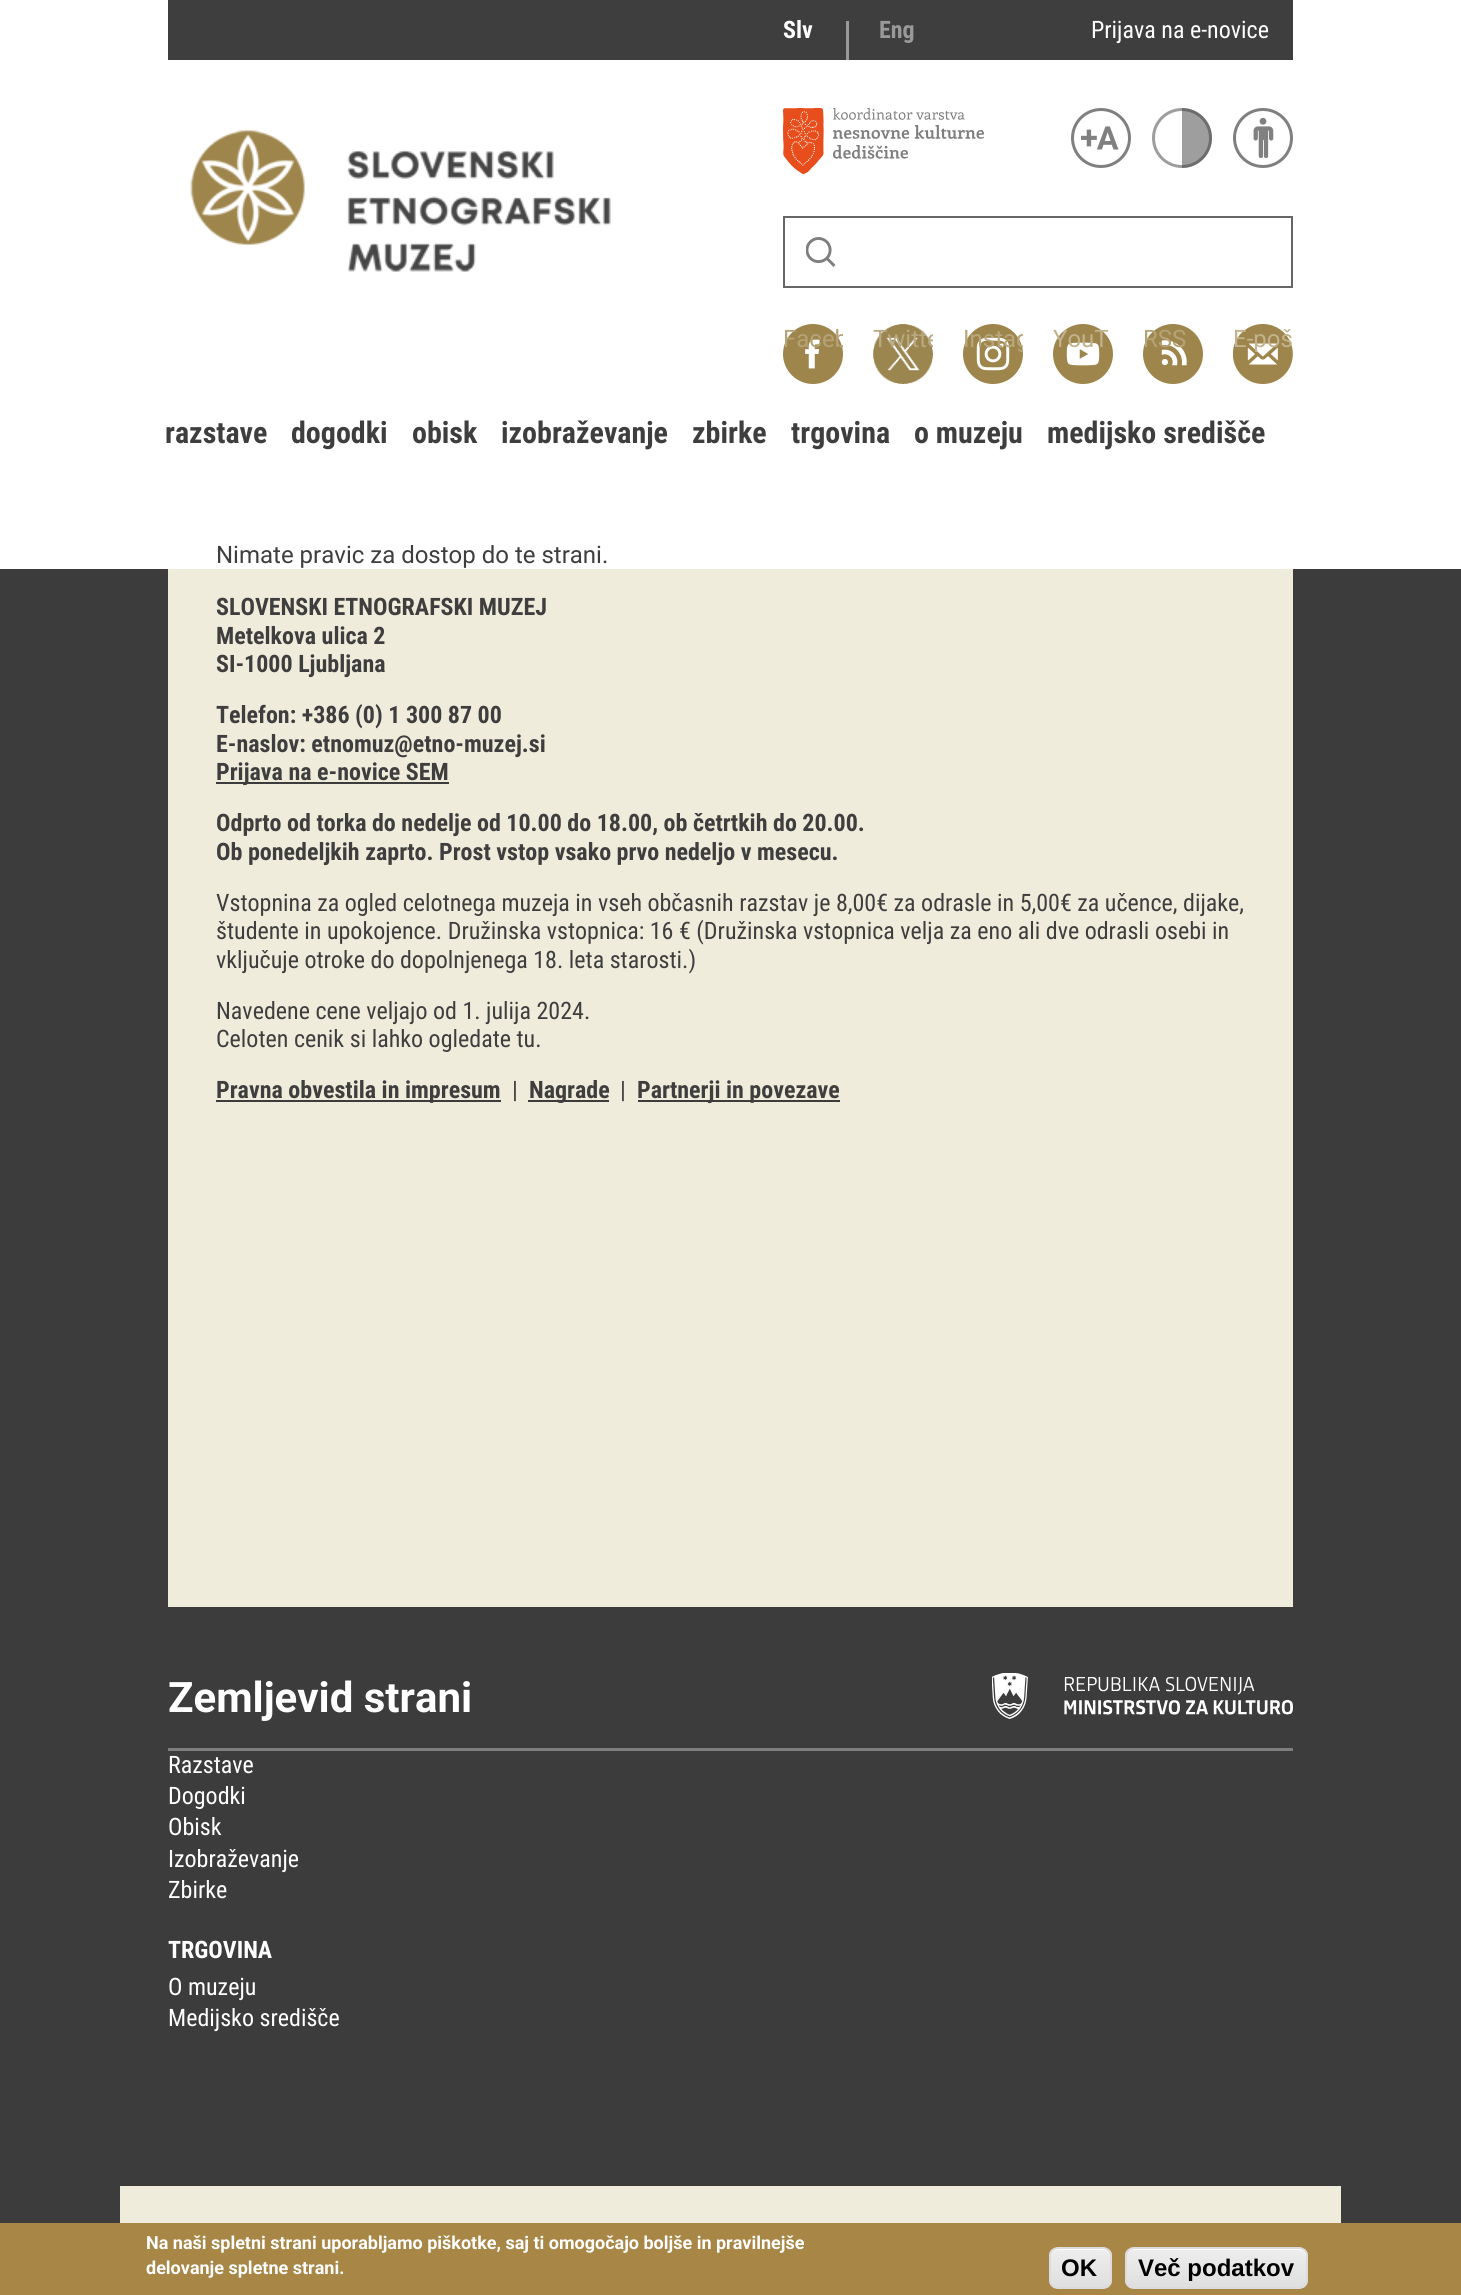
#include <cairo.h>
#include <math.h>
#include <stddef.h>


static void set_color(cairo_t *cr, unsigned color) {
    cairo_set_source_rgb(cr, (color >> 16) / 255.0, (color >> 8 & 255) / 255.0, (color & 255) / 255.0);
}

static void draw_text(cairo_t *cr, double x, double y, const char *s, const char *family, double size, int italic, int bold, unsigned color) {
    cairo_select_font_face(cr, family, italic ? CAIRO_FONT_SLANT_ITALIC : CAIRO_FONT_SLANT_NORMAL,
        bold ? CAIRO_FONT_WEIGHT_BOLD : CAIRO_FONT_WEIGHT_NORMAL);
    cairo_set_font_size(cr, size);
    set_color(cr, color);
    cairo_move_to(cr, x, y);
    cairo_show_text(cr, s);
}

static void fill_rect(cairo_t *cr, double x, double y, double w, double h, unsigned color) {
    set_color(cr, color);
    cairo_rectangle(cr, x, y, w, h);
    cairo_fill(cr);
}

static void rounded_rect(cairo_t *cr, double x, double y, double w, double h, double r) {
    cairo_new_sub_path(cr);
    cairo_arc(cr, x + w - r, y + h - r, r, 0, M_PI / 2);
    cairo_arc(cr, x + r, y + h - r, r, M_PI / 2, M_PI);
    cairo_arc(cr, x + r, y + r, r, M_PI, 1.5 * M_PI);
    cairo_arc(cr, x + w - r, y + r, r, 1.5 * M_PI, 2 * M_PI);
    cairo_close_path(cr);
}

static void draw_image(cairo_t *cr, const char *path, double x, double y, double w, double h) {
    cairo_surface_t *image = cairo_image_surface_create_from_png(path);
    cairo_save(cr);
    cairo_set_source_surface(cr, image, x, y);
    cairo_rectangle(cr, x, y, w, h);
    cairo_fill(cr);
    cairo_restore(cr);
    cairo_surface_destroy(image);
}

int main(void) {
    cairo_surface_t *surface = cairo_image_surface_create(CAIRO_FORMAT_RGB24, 1461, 2295);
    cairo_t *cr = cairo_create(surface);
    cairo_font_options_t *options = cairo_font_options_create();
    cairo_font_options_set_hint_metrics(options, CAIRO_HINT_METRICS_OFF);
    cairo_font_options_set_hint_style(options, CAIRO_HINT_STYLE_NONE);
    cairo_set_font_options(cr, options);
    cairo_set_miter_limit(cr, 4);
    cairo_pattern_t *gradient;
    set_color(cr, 0xFFFFFF);
    cairo_paint(cr);
    fill_rect(cr, 168, 0, 1125, 60, 0x3E3E3E);
    draw_text(cr, 783, 38, "Slv", "Roboto Condensed", 24, 0, 1, 0xFFFFFF);
    fill_rect(cr, 846, 21, 3, 39, 0x999999);
    draw_text(cr, 879, 38, "Eng", "Roboto Condensed", 24, 0, 1, 0x999999);
    draw_text(cr, 1091, 38, "Prijava na e-novice", "Roboto Condensed", 24, 0, 0, 0xFFFFFF);
    draw_image(cr, "assets/img1.png", 190, 130, 421, 142);
    draw_image(cr, "assets/img2.png", 783, 108, 201, 66);
    draw_image(cr, "assets/img3.png", 1071, 108, 60, 60);
    draw_image(cr, "assets/img4.png", 1152, 108, 60, 60);
    draw_image(cr, "assets/img5.png", 1233, 108, 60, 60);
    draw_image(cr, "assets/img6.png", 806, 237, 30, 30);
    cairo_rectangle(cr, 784, 217, 508, 70);
    set_color(cr, 0x666666);
    cairo_stroke(cr);
    draw_image(cr, "assets/img7.png", 783, 324, 60, 60);
    cairo_save(cr);
    cairo_rectangle(cr, 783, 324, 60, 60);
    cairo_clip(cr);
    draw_text(cr, 783, 347, "Faceb", "Roboto", 24, 0, 0, 0xB5A377);
    cairo_restore(cr);
    draw_image(cr, "assets/img8.png", 873, 324, 60, 60);
    cairo_save(cr);
    cairo_rectangle(cr, 873, 324, 60, 60);
    cairo_clip(cr);
    draw_text(cr, 873, 347, "Twitte", "Roboto", 24, 0, 0, 0xB8A983);
    cairo_restore(cr);
    draw_image(cr, "assets/img9.png", 963, 324, 60, 60);
    cairo_save(cr);
    cairo_rectangle(cr, 963, 324, 60, 60);
    cairo_clip(cr);
    draw_text(cr, 963, 347, "Instag", "Roboto", 24, 0, 0, 0xB8A77D);
    cairo_restore(cr);
    draw_image(cr, "assets/img10.png", 1053, 324, 60, 60);
    draw_text(cr, 1053, 347, "YouT", "Roboto", 24, 0, 0, 0xC2B28E);
    draw_image(cr, "assets/img11.png", 1143, 324, 60, 60);
    draw_text(cr, 1143, 347, "RSS", "Roboto", 24, 0, 0, 0xB5A377);
    draw_image(cr, "assets/img12.png", 1233, 324, 60, 60);
    draw_text(cr, 1233, 347, "E-poš", "Roboto", 24, 0, 0, 0xC2B28E);
    draw_text(cr, 165, 443, "razstave", "Roboto Condensed", 30, 0, 1, 0x3E3E3E);
    draw_text(cr, 291, 443, "dogodki", "Roboto Condensed", 30, 0, 1, 0x3E3E3E);
    draw_text(cr, 412, 443, "obisk", "Roboto Condensed", 30, 0, 1, 0x3E3E3E);
    draw_text(cr, 501, 443, "izobraževanje", "Roboto Condensed", 30, 0, 1, 0x3E3E3E);
    draw_text(cr, 692, 443, "zbirke", "Roboto Condensed", 30, 0, 1, 0x3E3E3E);
    draw_text(cr, 791, 443, "trgovina", "Roboto Condensed", 30, 0, 1, 0x3E3E3E);
    draw_text(cr, 914, 443, "o muzeju", "Roboto Condensed", 30, 0, 1, 0x3E3E3E);
    draw_text(cr, 1047, 443, "medijsko središče", "Roboto Condensed", 30, 0, 1, 0x3E3E3E);
    draw_text(cr, 216, 563, "Nimate pravic za dostop do te strani.", "Roboto", 24, 0, 0, 0x3E3E3E);
    fill_rect(cr, 0, 569, 1461, 1654, 0x3C3C3C);
    fill_rect(cr, 168, 569, 1125, 1038, 0xF0ECDC);
    draw_text(cr, 216, 615, "SLOVENSKI ETNOGRAFSKI MUZEJ", "Roboto Condensed", 24, 0, 1, 0x3E3E3E);
    draw_text(cr, 216, 644, "Metelkova ulica 2", "Roboto Condensed", 24, 0, 1, 0x3E3E3E);
    draw_text(cr, 216, 672, "SI-1000 Ljubljana", "Roboto Condensed", 24, 0, 1, 0x3E3E3E);
    draw_text(cr, 216, 723, "Telefon: +386 (0) 1 300 87 00", "Roboto Condensed", 24, 0, 1, 0x3E3E3E);
    draw_text(cr, 216, 752, "E-naslov: etnomuz@etno-muzej.si", "Roboto Condensed", 24, 0, 1, 0x3E3E3E);
    fill_rect(cr, 216, 782, 233, 2, 0x3C3C3C);
    draw_text(cr, 216, 780, "Prijava na e-novice SEM", "Roboto Condensed", 24, 0, 1, 0x3E3E3E);
    draw_text(cr, 216, 831, "Odprto od torka do nedelje od 10.00 do 18.00, ob četrtkih do 20.00.", "Roboto Condensed", 24, 0, 1, 0x3E3E3E);
    draw_text(cr, 216, 860, "Ob ponedeljkih zaprto. Prost vstop vsako prvo nedeljo v mesecu.", "Roboto Condensed", 24, 0, 1, 0x3E3E3E);
    draw_text(cr, 216, 911, "Vstopnina za ogled celotnega muzeja in vseh občasnih razstav je 8,00€ za odrasle in 5,00€ za učence, dijake,", "Roboto Condensed", 24, 0, 0, 0x3E3E3E);
    draw_text(cr, 216, 939, "študente in upokojence. Družinska vstopnica: 16 € (Družinska vstopnica velja za eno ali dve odrasli osebi in", "Roboto Condensed", 24, 0, 0, 0x3E3E3E);
    draw_text(cr, 216, 968, "vključuje otroke do dopolnjenega 18. leta starosti.)", "Roboto Condensed", 24, 0, 0, 0x3E3E3E);
    draw_text(cr, 216, 1019, "Navedene cene veljajo od 1. julija 2024.", "Roboto Condensed", 24, 0, 0, 0x3E3E3E);
    draw_text(cr, 216, 1047, "Celoten cenik si lahko ogledate tu.", "Roboto Condensed", 24, 0, 0, 0x3E3E3E);
    fill_rect(cr, 216, 1100, 285, 2, 0x3C3C3C);
    draw_text(cr, 216, 1098, "Pravna obvestila in impresum", "Roboto Condensed", 24, 0, 1, 0x3E3E3E);
    draw_text(cr, 512, 1098, "|", "Roboto Condensed", 24, 0, 0, 0x3E3E3E);
    fill_rect(cr, 528, 1100, 81, 2, 0x3C3C3C);
    draw_text(cr, 529, 1098, "Nagrade", "Roboto Condensed", 24, 0, 1, 0x3E3E3E);
    draw_text(cr, 620, 1098, "|", "Roboto Condensed", 24, 0, 0, 0x3E3E3E);
    fill_rect(cr, 638, 1100, 202, 2, 0x3C3C3C);
    draw_text(cr, 637, 1098, "Partnerji in povezave", "Roboto Condensed", 24, 0, 1, 0x3E3E3E);
    fill_rect(cr, 168, 1748, 1125, 3, 0x7E7E7E);
    draw_text(cr, 168, 1712, "Zemljevid strani", "Roboto", 42, 0, 1, 0xFFFFFF);
    draw_image(cr, "assets/img13.png", 992, 1673, 301, 46);
    draw_text(cr, 168, 1773, "Razstave", "Roboto Condensed", 24, 0, 0, 0xFFFFFF);
    draw_text(cr, 168, 1804, "Dogodki", "Roboto Condensed", 24, 0, 0, 0xFFFFFF);
    draw_text(cr, 168, 1835, "Obisk", "Roboto Condensed", 24, 0, 0, 0xFFFFFF);
    draw_text(cr, 168, 1867, "Izobraževanje", "Roboto Condensed", 24, 0, 0, 0xFFFFFF);
    draw_text(cr, 168, 1898, "Zbirke", "Roboto Condensed", 24, 0, 0, 0xFFFFFF);
    draw_text(cr, 168, 1958, "TRGOVINA", "Roboto Condensed", 24, 0, 1, 0xFFFFFF);
    draw_text(cr, 168, 1995, "O muzeju", "Roboto Condensed", 24, 0, 0, 0xFFFFFF);
    draw_text(cr, 168, 2026, "Medijsko središče", "Roboto Condensed", 24, 0, 0, 0xFFFFFF);
    fill_rect(cr, 120, 2186, 1221, 37, 0xF0ECDC);
    fill_rect(cr, 0, 2223, 1461, 72, 0xA78646);
    draw_text(cr, 146, 2249, "Na naši spletni strani uporabljamo piškotke, saj ti omogočajo boljše in pravilnejše", "Roboto", 18, 0, 1, 0xFFFFFF);
    draw_text(cr, 146, 2274, "delovanje spletne strani.", "Roboto", 18, 0, 1, 0xFFFFFF);
    cairo_save(cr);
    rounded_rect(cr, 1049, 2247, 63, 42, 9);
    cairo_clip(cr);
    gradient = cairo_pattern_create_linear(1050, 2249, 1050, 2288);
    cairo_pattern_add_color_stop_rgba(gradient, 0.05, 0.929, 0.929, 0.929, 1);
    cairo_pattern_add_color_stop_rgba(gradient, 1, 0.875, 0.875, 0.875, 1);
    cairo_set_source(cr, gradient);
    cairo_pattern_destroy(gradient);
    cairo_rectangle(cr, 1049, 2249, 63, 39);
    cairo_fill(cr);
    cairo_restore(cr);
    cairo_new_path(cr);
    cairo_move_to(cr, 1058, 2250);
    cairo_line_to(cr, 1102, 2250);
    cairo_curve_to(cr, 1107, 2250, 1110, 2253, 1110, 2258);
    cairo_curve_to(cr, 1110, 2248, 1102, 2249, 1095, 2249);
    cairo_line_to(cr, 1065, 2249);
    cairo_curve_to(cr, 1058, 2249, 1050, 2248, 1050, 2258);
    cairo_curve_to(cr, 1050, 2253, 1053, 2250, 1058, 2250);
    cairo_close_path(cr);
    cairo_fill(cr);
    rounded_rect(cr, 1050, 2248, 61, 40, 8);
    set_color(cr, 0xDCDCDC);
    cairo_stroke(cr);
    draw_text(cr, 1061, 2276, "OK", "Liberation Sans", 24, 0, 1, 0x000000);
    cairo_save(cr);
    rounded_rect(cr, 1125, 2247, 183, 42, 9);
    cairo_clip(cr);
    gradient = cairo_pattern_create_linear(1127, 2249, 1127, 2288);
    cairo_pattern_add_color_stop_rgba(gradient, 0.05, 0.929, 0.929, 0.929, 1);
    cairo_pattern_add_color_stop_rgba(gradient, 1, 0.875, 0.875, 0.875, 1);
    cairo_set_source(cr, gradient);
    cairo_pattern_destroy(gradient);
    cairo_rectangle(cr, 1125, 2249, 183, 39);
    cairo_fill(cr);
    cairo_restore(cr);
    set_color(cr, 0xFFFFFF);
    cairo_new_path(cr);
    cairo_move_to(cr, 1134, 2250);
    cairo_line_to(cr, 1299, 2250);
    cairo_curve_to(cr, 1303, 2250, 1306, 2253, 1306, 2258);
    cairo_line_to(cr, 1306, 2282);
    cairo_line_to(cr, 1306, 2285);
    cairo_curve_to(cr, 1306, 2283, 1307, 2282, 1307, 2280);
    cairo_line_to(cr, 1307, 2257);
    cairo_curve_to(cr, 1307, 2253, 1303, 2249, 1299, 2249);
    cairo_line_to(cr, 1135, 2249);
    cairo_curve_to(cr, 1133, 2249, 1130, 2250, 1129, 2252);
    cairo_curve_to(cr, 1130, 2251, 1132, 2250, 1134, 2250);
    cairo_close_path(cr);
    cairo_fill(cr);
    rounded_rect(cr, 1126, 2248, 181, 40, 8);
    set_color(cr, 0xDCDCDC);
    cairo_stroke(cr);
    draw_text(cr, 1138, 2276, "Več podatkov", "Liberation Sans", 24, 0, 1, 0x000000);
    cairo_surface_write_to_png(surface, "output.png");
    cairo_font_options_destroy(options);
    cairo_destroy(cr);
    cairo_surface_destroy(surface);
    return 0;
}
